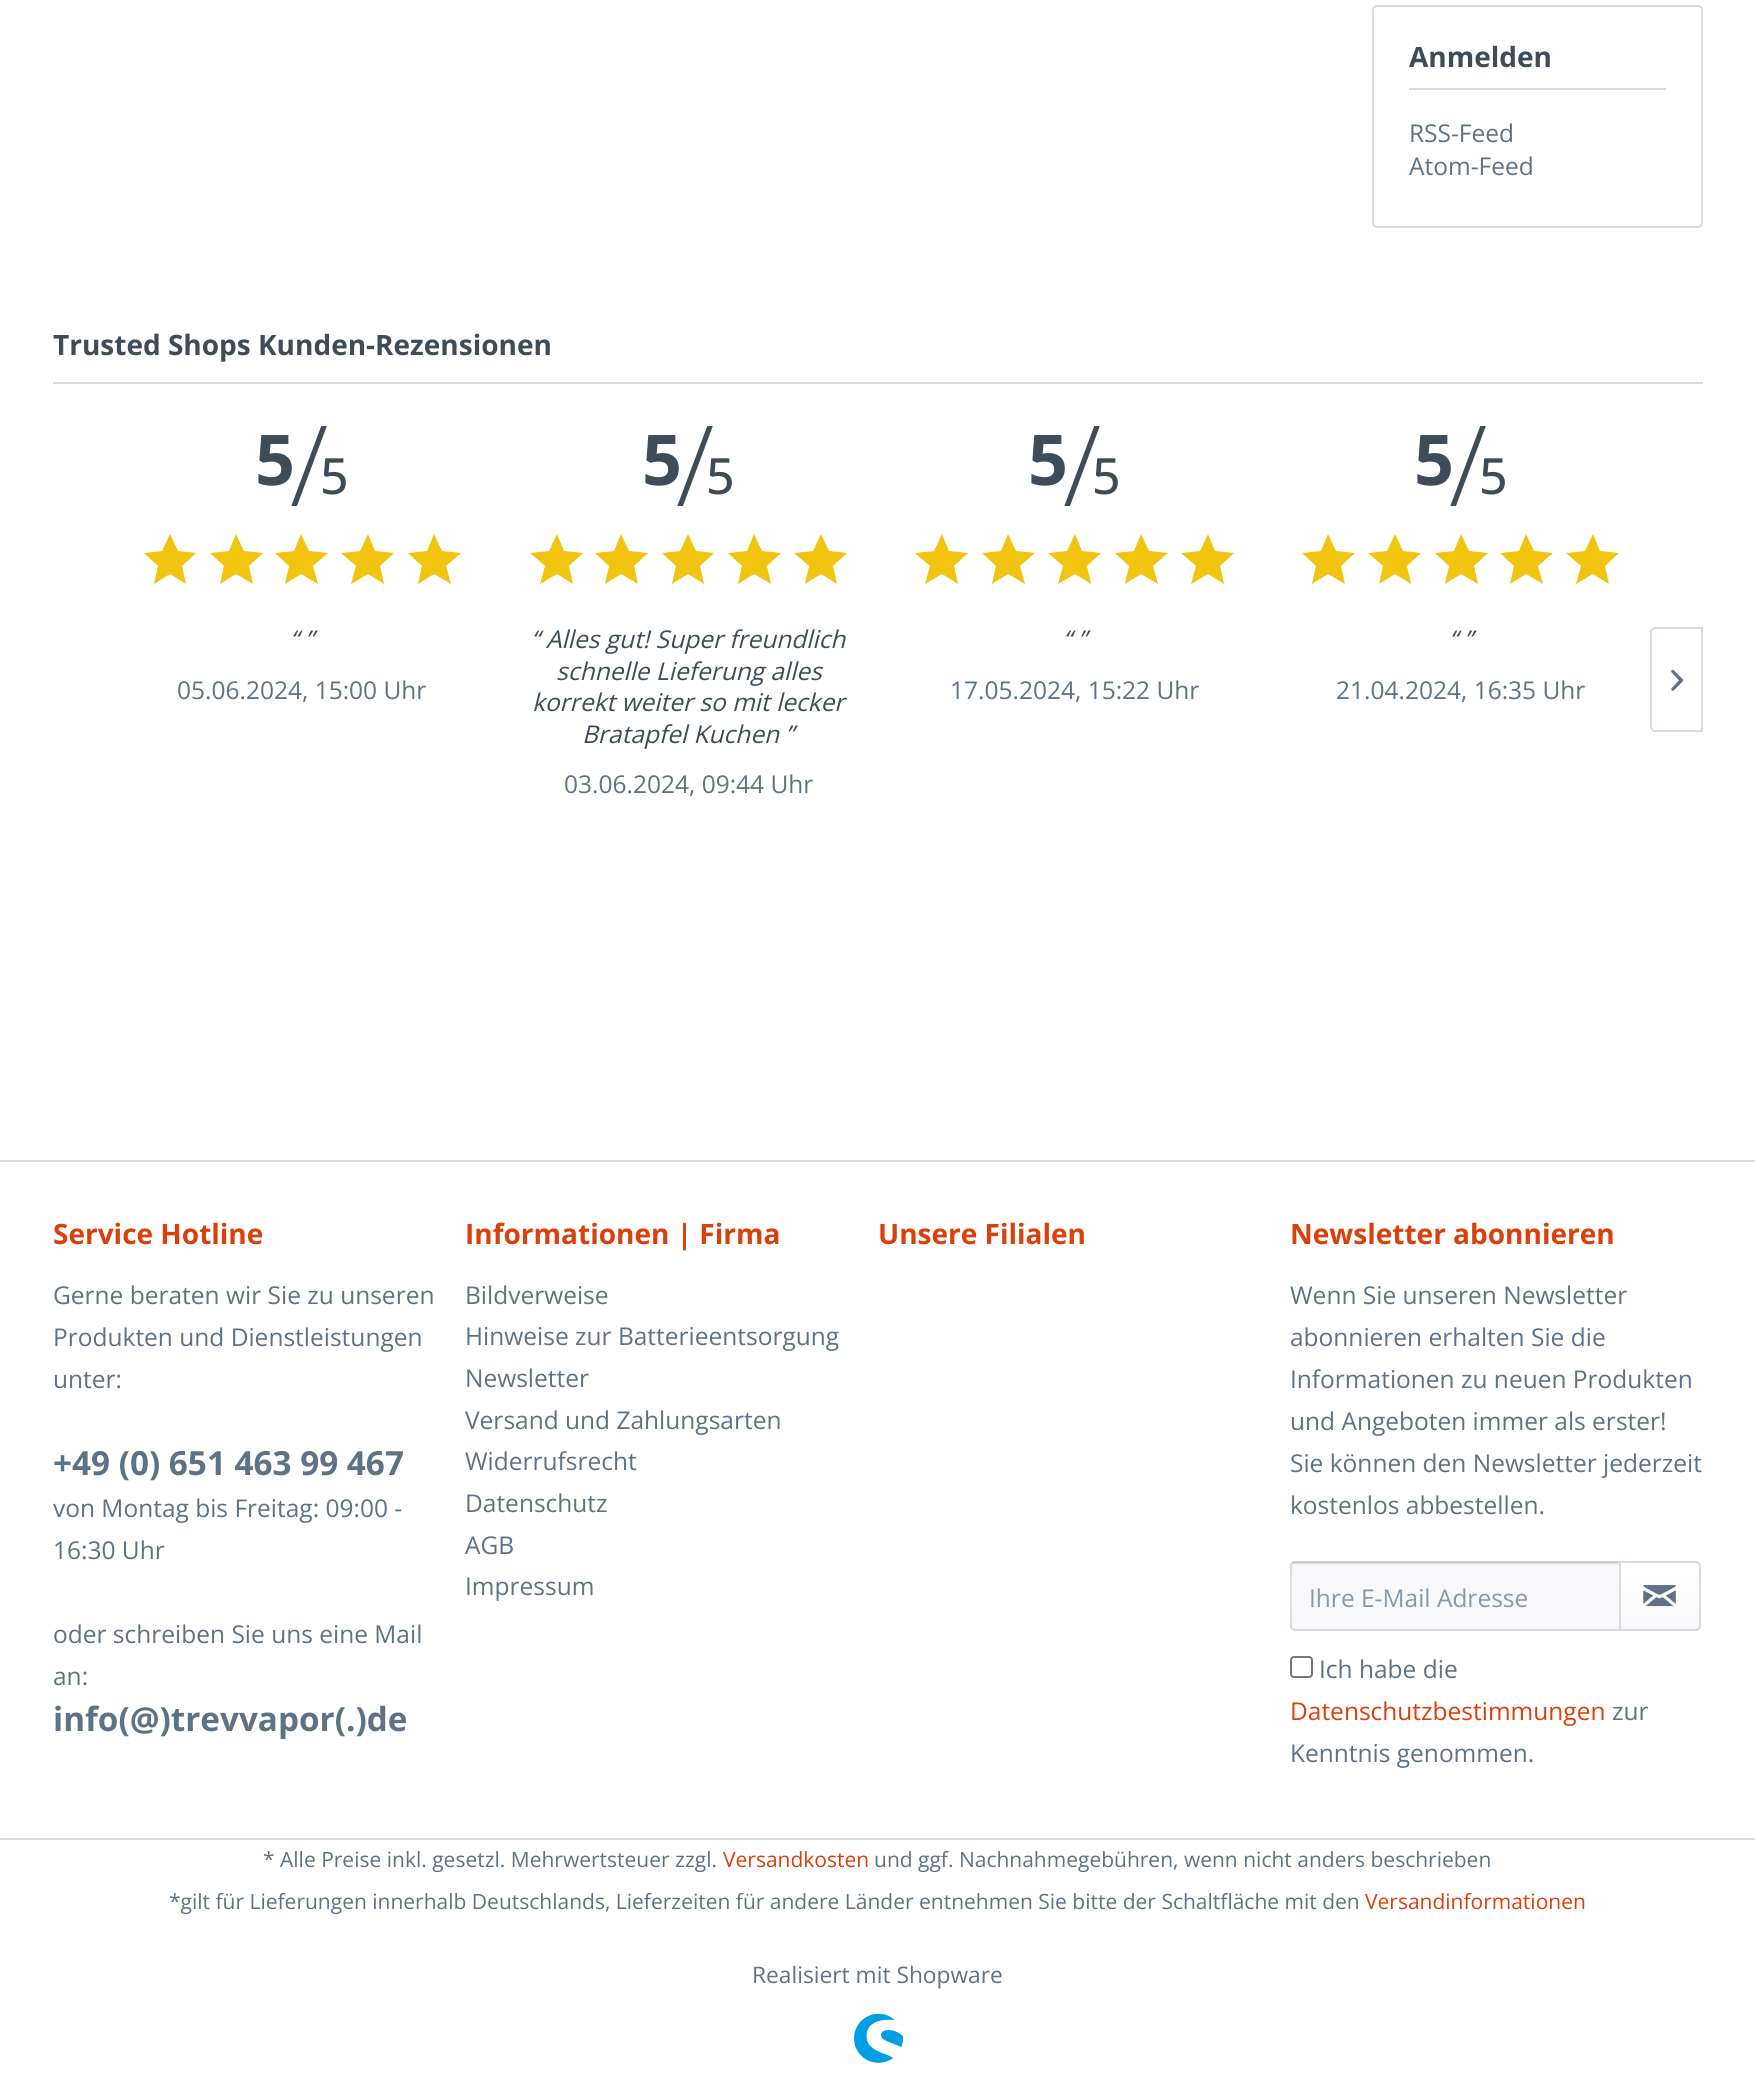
#include <cairo.h>
#include <math.h>
#include <stddef.h>


static void set_color(cairo_t *cr, unsigned color) {
    cairo_set_source_rgb(cr, (color >> 16) / 255.0, (color >> 8 & 255) / 255.0, (color & 255) / 255.0);
}

static void draw_text(cairo_t *cr, double x, double y, const char *s, const char *family, double size, int italic, int bold, unsigned color) {
    cairo_select_font_face(cr, family, italic ? CAIRO_FONT_SLANT_ITALIC : CAIRO_FONT_SLANT_NORMAL,
        bold ? CAIRO_FONT_WEIGHT_BOLD : CAIRO_FONT_WEIGHT_NORMAL);
    cairo_set_font_size(cr, size);
    set_color(cr, color);
    cairo_move_to(cr, x, y);
    cairo_show_text(cr, s);
}

static void fill_rect(cairo_t *cr, double x, double y, double w, double h, unsigned color) {
    set_color(cr, color);
    cairo_rectangle(cr, x, y, w, h);
    cairo_fill(cr);
}

static void rounded_rect(cairo_t *cr, double x, double y, double w, double h, double r) {
    cairo_new_sub_path(cr);
    cairo_arc(cr, x + w - r, y + h - r, r, 0, M_PI / 2);
    cairo_arc(cr, x + r, y + h - r, r, M_PI / 2, M_PI);
    cairo_arc(cr, x + r, y + r, r, M_PI, 1.5 * M_PI);
    cairo_arc(cr, x + w - r, y + r, r, 1.5 * M_PI, 2 * M_PI);
    cairo_close_path(cr);
}

static void draw_image(cairo_t *cr, const char *path, double x, double y, double w, double h) {
    cairo_surface_t *image = cairo_image_surface_create_from_png(path);
    cairo_save(cr);
    cairo_set_source_surface(cr, image, x, y);
    cairo_rectangle(cr, x, y, w, h);
    cairo_fill(cr);
    cairo_restore(cr);
    cairo_surface_destroy(image);
}

int main(void) {
    cairo_surface_t *surface = cairo_image_surface_create(CAIRO_FORMAT_RGB24, 1755, 2090);
    cairo_t *cr = cairo_create(surface);
    cairo_font_options_t *options = cairo_font_options_create();
    cairo_font_options_set_hint_metrics(options, CAIRO_HINT_METRICS_OFF);
    cairo_font_options_set_hint_style(options, CAIRO_HINT_STYLE_NONE);
    cairo_set_font_options(cr, options);
    cairo_set_miter_limit(cr, 4);
    cairo_pattern_t *gradient;
    set_color(cr, 0xFFFFFF);
    cairo_paint(cr);
    rounded_rect(cr, 1373, 6, 329, 221, 4);
    set_color(cr, 0xDADAE5);
    cairo_stroke(cr);
    fill_rect(cr, 1409, 88, 257, 2, 0xDADAE5);
    draw_text(cr, 1409, 67, "Anmelden", "Open Sans", 28, 0, 1, 0x3F4C58);
    draw_text(cr, 1409, 142, "RSS-Feed", "Open Sans", 24.5, 0, 0, 0x5F7285);
    draw_text(cr, 1409, 175, "Atom-Feed", "Open Sans", 24.5, 0, 0, 0x5F7285);
    fill_rect(cr, 53, 382, 1650, 2, 0xDADAE5);
    draw_text(cr, 53, 355, "Trusted Shops Kunden-Rezensionen", "Open Sans", 28, 0, 1, 0x3F4C58);
    draw_text(cr, 255, 485, "5", "Open Sans", 70, 0, 1, 0x3F4C58);
    draw_text(cr, 290, 506, "/", "Open Sans Light", 112, 0, 0, 0x3F4C58);
    draw_text(cr, 320, 494, "5", "Open Sans Medium", 50, 0, 0, 0x3F4C58);
    set_color(cr, 0xF1C40F);
    cairo_new_path(cr);
    cairo_move_to(cr, 170, 534);
    cairo_line_to(cr, 162, 551);
    cairo_line_to(cr, 144, 553);
    cairo_line_to(cr, 158, 566);
    cairo_line_to(cr, 154, 584);
    cairo_line_to(cr, 170, 574);
    cairo_line_to(cr, 186, 584);
    cairo_line_to(cr, 182, 566);
    cairo_line_to(cr, 196, 553);
    cairo_line_to(cr, 178, 551);
    cairo_close_path(cr);
    cairo_fill(cr);
    cairo_new_path(cr);
    cairo_move_to(cr, 236, 534);
    cairo_line_to(cr, 229, 551);
    cairo_line_to(cr, 210, 553);
    cairo_line_to(cr, 224, 566);
    cairo_line_to(cr, 220, 584);
    cairo_line_to(cr, 236, 574);
    cairo_line_to(cr, 253, 584);
    cairo_line_to(cr, 249, 566);
    cairo_line_to(cr, 263, 553);
    cairo_line_to(cr, 244, 551);
    cairo_close_path(cr);
    cairo_fill(cr);
    cairo_new_path(cr);
    cairo_move_to(cr, 301, 534);
    cairo_line_to(cr, 294, 551);
    cairo_line_to(cr, 275, 553);
    cairo_line_to(cr, 289, 566);
    cairo_line_to(cr, 285, 584);
    cairo_line_to(cr, 301, 574);
    cairo_line_to(cr, 318, 584);
    cairo_line_to(cr, 313, 566);
    cairo_line_to(cr, 328, 553);
    cairo_line_to(cr, 309, 551);
    cairo_close_path(cr);
    cairo_fill(cr);
    cairo_new_path(cr);
    cairo_move_to(cr, 368, 534);
    cairo_line_to(cr, 360, 551);
    cairo_line_to(cr, 341, 553);
    cairo_line_to(cr, 356, 566);
    cairo_line_to(cr, 351, 584);
    cairo_line_to(cr, 368, 574);
    cairo_line_to(cr, 384, 584);
    cairo_line_to(cr, 380, 566);
    cairo_line_to(cr, 394, 553);
    cairo_line_to(cr, 375, 551);
    cairo_close_path(cr);
    cairo_fill(cr);
    cairo_new_path(cr);
    cairo_move_to(cr, 434, 534);
    cairo_line_to(cr, 427, 551);
    cairo_line_to(cr, 408, 553);
    cairo_line_to(cr, 422, 566);
    cairo_line_to(cr, 418, 584);
    cairo_line_to(cr, 434, 574);
    cairo_line_to(cr, 451, 584);
    cairo_line_to(cr, 446, 566);
    cairo_line_to(cr, 461, 553);
    cairo_line_to(cr, 442, 551);
    cairo_close_path(cr);
    cairo_fill(cr);
    draw_text(cr, 290, 648, "“ ”", "Open Sans", 24.5, 1, 0, 0x3F4C58);
    draw_text(cr, 177, 699, "05.06.2024, 15:00 Uhr", "Open Sans", 24.5, 0, 0, 0x5F7285);
    draw_text(cr, 642, 485, "5", "Open Sans", 70, 0, 1, 0x3F4C58);
    draw_text(cr, 676, 506, "/", "Open Sans Light", 112, 0, 0, 0x3F4C58);
    draw_text(cr, 706, 494, "5", "Open Sans Medium", 50, 0, 0, 0x3F4C58);
    set_color(cr, 0xF1C40F);
    cairo_new_path(cr);
    cairo_move_to(cr, 557, 534);
    cairo_line_to(cr, 549, 551);
    cairo_line_to(cr, 530, 553);
    cairo_line_to(cr, 545, 566);
    cairo_line_to(cr, 540, 584);
    cairo_line_to(cr, 557, 574);
    cairo_line_to(cr, 573, 584);
    cairo_line_to(cr, 569, 566);
    cairo_line_to(cr, 583, 553);
    cairo_line_to(cr, 564, 551);
    cairo_close_path(cr);
    cairo_fill(cr);
    cairo_new_path(cr);
    cairo_move_to(cr, 621, 534);
    cairo_line_to(cr, 614, 551);
    cairo_line_to(cr, 595, 553);
    cairo_line_to(cr, 609, 566);
    cairo_line_to(cr, 605, 584);
    cairo_line_to(cr, 621, 574);
    cairo_line_to(cr, 638, 584);
    cairo_line_to(cr, 634, 566);
    cairo_line_to(cr, 648, 553);
    cairo_line_to(cr, 629, 551);
    cairo_close_path(cr);
    cairo_fill(cr);
    cairo_new_path(cr);
    cairo_move_to(cr, 688, 534);
    cairo_line_to(cr, 680, 551);
    cairo_line_to(cr, 662, 553);
    cairo_line_to(cr, 676, 566);
    cairo_line_to(cr, 672, 584);
    cairo_line_to(cr, 688, 574);
    cairo_line_to(cr, 704, 584);
    cairo_line_to(cr, 700, 566);
    cairo_line_to(cr, 714, 553);
    cairo_line_to(cr, 696, 551);
    cairo_close_path(cr);
    cairo_fill(cr);
    cairo_new_path(cr);
    cairo_move_to(cr, 754, 534);
    cairo_line_to(cr, 747, 551);
    cairo_line_to(cr, 728, 553);
    cairo_line_to(cr, 742, 566);
    cairo_line_to(cr, 738, 584);
    cairo_line_to(cr, 754, 574);
    cairo_line_to(cr, 771, 584);
    cairo_line_to(cr, 767, 566);
    cairo_line_to(cr, 781, 553);
    cairo_line_to(cr, 762, 551);
    cairo_close_path(cr);
    cairo_fill(cr);
    cairo_new_path(cr);
    cairo_move_to(cr, 821, 534);
    cairo_line_to(cr, 813, 551);
    cairo_line_to(cr, 794, 553);
    cairo_line_to(cr, 809, 566);
    cairo_line_to(cr, 805, 584);
    cairo_line_to(cr, 821, 574);
    cairo_line_to(cr, 837, 584);
    cairo_line_to(cr, 833, 566);
    cairo_line_to(cr, 847, 553);
    cairo_line_to(cr, 829, 551);
    cairo_close_path(cr);
    cairo_fill(cr);
    draw_text(cr, 531, 648, "“ Alles gut! Super freundlich", "Open Sans", 24.5, 1, 0, 0x3F4C58);
    draw_text(cr, 556, 680, "schnelle Lieferung alles", "Open Sans", 24.5, 1, 0, 0x3F4C58);
    draw_text(cr, 532, 711, "korrekt weiter so mit lecker", "Open Sans", 24.5, 1, 0, 0x3F4C58);
    draw_text(cr, 582, 743, "Bratapfel Kuchen ”", "Open Sans", 24.5, 1, 0, 0x3F4C58);
    draw_text(cr, 564, 793, "03.06.2024, 09:44 Uhr", "Open Sans", 24.5, 0, 0, 0x5F7285);
    draw_text(cr, 1028, 485, "5", "Open Sans", 70, 0, 1, 0x3F4C58);
    draw_text(cr, 1063, 506, "/", "Open Sans Light", 112, 0, 0, 0x3F4C58);
    draw_text(cr, 1092, 494, "5", "Open Sans Medium", 50, 0, 0, 0x3F4C58);
    set_color(cr, 0xF1C40F);
    cairo_new_path(cr);
    cairo_move_to(cr, 942, 534);
    cairo_line_to(cr, 934, 551);
    cairo_line_to(cr, 915, 553);
    cairo_line_to(cr, 930, 566);
    cairo_line_to(cr, 925, 584);
    cairo_line_to(cr, 942, 574);
    cairo_line_to(cr, 958, 584);
    cairo_line_to(cr, 954, 566);
    cairo_line_to(cr, 968, 553);
    cairo_line_to(cr, 949, 551);
    cairo_close_path(cr);
    cairo_fill(cr);
    cairo_new_path(cr);
    cairo_move_to(cr, 1008, 534);
    cairo_line_to(cr, 1001, 551);
    cairo_line_to(cr, 982, 553);
    cairo_line_to(cr, 996, 566);
    cairo_line_to(cr, 992, 584);
    cairo_line_to(cr, 1008, 574);
    cairo_line_to(cr, 1025, 584);
    cairo_line_to(cr, 1020, 566);
    cairo_line_to(cr, 1035, 553);
    cairo_line_to(cr, 1016, 551);
    cairo_close_path(cr);
    cairo_fill(cr);
    cairo_new_path(cr);
    cairo_move_to(cr, 1075, 534);
    cairo_line_to(cr, 1067, 551);
    cairo_line_to(cr, 1048, 553);
    cairo_line_to(cr, 1063, 566);
    cairo_line_to(cr, 1058, 584);
    cairo_line_to(cr, 1075, 574);
    cairo_line_to(cr, 1091, 584);
    cairo_line_to(cr, 1087, 566);
    cairo_line_to(cr, 1101, 553);
    cairo_line_to(cr, 1082, 551);
    cairo_close_path(cr);
    cairo_fill(cr);
    cairo_new_path(cr);
    cairo_move_to(cr, 1141, 534);
    cairo_line_to(cr, 1134, 551);
    cairo_line_to(cr, 1115, 553);
    cairo_line_to(cr, 1129, 566);
    cairo_line_to(cr, 1125, 584);
    cairo_line_to(cr, 1141, 574);
    cairo_line_to(cr, 1158, 584);
    cairo_line_to(cr, 1153, 566);
    cairo_line_to(cr, 1168, 553);
    cairo_line_to(cr, 1149, 551);
    cairo_close_path(cr);
    cairo_fill(cr);
    cairo_new_path(cr);
    cairo_move_to(cr, 1208, 534);
    cairo_line_to(cr, 1200, 551);
    cairo_line_to(cr, 1181, 553);
    cairo_line_to(cr, 1196, 566);
    cairo_line_to(cr, 1191, 584);
    cairo_line_to(cr, 1208, 574);
    cairo_line_to(cr, 1224, 584);
    cairo_line_to(cr, 1220, 566);
    cairo_line_to(cr, 1234, 553);
    cairo_line_to(cr, 1215, 551);
    cairo_close_path(cr);
    cairo_fill(cr);
    draw_text(cr, 1063, 648, "“ ”", "Open Sans", 24.5, 1, 0, 0x3F4C58);
    draw_text(cr, 950, 699, "17.05.2024, 15:22 Uhr", "Open Sans", 24.5, 0, 0, 0x5F7285);
    draw_text(cr, 1414, 485, "5", "Open Sans", 70, 0, 1, 0x3F4C58);
    draw_text(cr, 1449, 506, "/", "Open Sans Light", 112, 0, 0, 0x3F4C58);
    draw_text(cr, 1479, 494, "5", "Open Sans Medium", 50, 0, 0, 0x3F4C58);
    set_color(cr, 0xF1C40F);
    cairo_new_path(cr);
    cairo_move_to(cr, 1328, 534);
    cairo_line_to(cr, 1321, 551);
    cairo_line_to(cr, 1302, 553);
    cairo_line_to(cr, 1316, 566);
    cairo_line_to(cr, 1312, 584);
    cairo_line_to(cr, 1328, 574);
    cairo_line_to(cr, 1345, 584);
    cairo_line_to(cr, 1341, 566);
    cairo_line_to(cr, 1355, 553);
    cairo_line_to(cr, 1336, 551);
    cairo_close_path(cr);
    cairo_fill(cr);
    cairo_new_path(cr);
    cairo_move_to(cr, 1395, 534);
    cairo_line_to(cr, 1387, 551);
    cairo_line_to(cr, 1368, 553);
    cairo_line_to(cr, 1383, 566);
    cairo_line_to(cr, 1379, 584);
    cairo_line_to(cr, 1395, 574);
    cairo_line_to(cr, 1411, 584);
    cairo_line_to(cr, 1407, 566);
    cairo_line_to(cr, 1421, 553);
    cairo_line_to(cr, 1403, 551);
    cairo_close_path(cr);
    cairo_fill(cr);
    cairo_new_path(cr);
    cairo_move_to(cr, 1461, 534);
    cairo_line_to(cr, 1454, 551);
    cairo_line_to(cr, 1435, 553);
    cairo_line_to(cr, 1449, 566);
    cairo_line_to(cr, 1445, 584);
    cairo_line_to(cr, 1461, 574);
    cairo_line_to(cr, 1478, 584);
    cairo_line_to(cr, 1474, 566);
    cairo_line_to(cr, 1488, 553);
    cairo_line_to(cr, 1469, 551);
    cairo_close_path(cr);
    cairo_fill(cr);
    cairo_new_path(cr);
    cairo_move_to(cr, 1526, 534);
    cairo_line_to(cr, 1519, 551);
    cairo_line_to(cr, 1500, 553);
    cairo_line_to(cr, 1514, 566);
    cairo_line_to(cr, 1510, 584);
    cairo_line_to(cr, 1526, 574);
    cairo_line_to(cr, 1543, 584);
    cairo_line_to(cr, 1538, 566);
    cairo_line_to(cr, 1553, 553);
    cairo_line_to(cr, 1534, 551);
    cairo_close_path(cr);
    cairo_fill(cr);
    cairo_new_path(cr);
    cairo_move_to(cr, 1593, 534);
    cairo_line_to(cr, 1585, 551);
    cairo_line_to(cr, 1566, 553);
    cairo_line_to(cr, 1581, 566);
    cairo_line_to(cr, 1576, 584);
    cairo_line_to(cr, 1593, 574);
    cairo_line_to(cr, 1609, 584);
    cairo_line_to(cr, 1605, 566);
    cairo_line_to(cr, 1619, 553);
    cairo_line_to(cr, 1600, 551);
    cairo_close_path(cr);
    cairo_fill(cr);
    draw_text(cr, 1449, 648, "“ ”", "Open Sans", 24.5, 1, 0, 0x3F4C58);
    draw_text(cr, 1336, 699, "21.04.2024, 16:35 Uhr", "Open Sans", 24.5, 0, 0, 0x5F7285);
    cairo_new_path(cr);
    cairo_move_to(cr, 1655, 628);
    cairo_line_to(cr, 1702, 628);
    cairo_line_to(cr, 1702, 731);
    cairo_line_to(cr, 1655, 731);
    cairo_curve_to(cr, 1653, 731, 1651, 729, 1651, 727);
    cairo_line_to(cr, 1651, 632);
    cairo_curve_to(cr, 1651, 630, 1653, 628, 1655, 628);
    cairo_close_path(cr);
    set_color(cr, 0xDADAE5);
    cairo_stroke(cr);
    draw_image(cr, "assets/img1.png", 1671, 669, 13, 22);
    fill_rect(cr, 0, 1160, 1755, 2, 0xDADAE5);
    fill_rect(cr, 0, 1838, 1755, 2, 0xDADAE5);
    draw_text(cr, 53, 1244, "Service Hotline", "Open Sans", 28, 0, 1, 0xD9400B);
    draw_text(cr, 53, 1304, "Gerne beraten wir Sie zu unseren", "Open Sans", 24.5, 0, 0, 0x5F7285);
    draw_text(cr, 53, 1346, "Produkten und Dienstleistungen", "Open Sans", 24.5, 0, 0, 0x5F7285);
    draw_text(cr, 53, 1388, "unter:", "Open Sans", 24.5, 0, 0, 0x5F7285);
    draw_text(cr, 53, 1475, "+49 (0) 651 463 99 467", "Open Sans", 33.25, 0, 1, 0x5F7285);
    draw_text(cr, 53, 1517, "von Montag bis Freitag: 09:00 -", "Open Sans", 24.5, 0, 0, 0x5F7285);
    draw_text(cr, 53, 1559, "16:30 Uhr", "Open Sans", 24.5, 0, 0, 0x5F7285);
    draw_text(cr, 53, 1643, "oder schreiben Sie uns eine Mail", "Open Sans", 24.5, 0, 0, 0x5F7285);
    draw_text(cr, 53, 1685, "an:", "Open Sans", 24.5, 0, 0, 0x5F7285);
    draw_text(cr, 53, 1731, "info(@)trevvapor(.)de", "Open Sans", 33.25, 0, 1, 0x5F7285);
    draw_text(cr, 465, 1244, "Informationen | Firma", "Open Sans", 28, 0, 1, 0xD9400B);
    draw_text(cr, 465, 1304, "Bildverweise", "Open Sans", 24.5, 0, 0, 0x5F7285);
    draw_text(cr, 465, 1345, "Hinweise zur Batterieentsorgung", "Open Sans", 24.5, 0, 0, 0x5F7285);
    draw_text(cr, 465, 1387, "Newsletter", "Open Sans", 24.5, 0, 0, 0x5F7285);
    draw_text(cr, 465, 1429, "Versand und Zahlungsarten", "Open Sans", 24.5, 0, 0, 0x5F7285);
    draw_text(cr, 465, 1470, "Widerrufsrecht", "Open Sans", 24.5, 0, 0, 0x5F7285);
    draw_text(cr, 465, 1512, "Datenschutz", "Open Sans", 24.5, 0, 0, 0x5F7285);
    draw_text(cr, 465, 1554, "AGB", "Open Sans", 24.5, 0, 0, 0x5F7285);
    draw_text(cr, 465, 1595, "Impressum", "Open Sans", 24.5, 0, 0, 0x5F7285);
    draw_text(cr, 878, 1244, "Unsere Filialen", "Open Sans", 28, 0, 1, 0xD9400B);
    draw_text(cr, 1290, 1244, "Newsletter abonnieren", "Open Sans", 28, 0, 1, 0xD9400B);
    draw_text(cr, 1290, 1304, "Wenn Sie unseren Newsletter", "Open Sans", 24.5, 0, 0, 0x5F7285);
    draw_text(cr, 1290, 1346, "abonnieren erhalten Sie die", "Open Sans", 24.5, 0, 0, 0x5F7285);
    draw_text(cr, 1290, 1388, "Informationen zu neuen Produkten", "Open Sans", 24.5, 0, 0, 0x5F7285);
    draw_text(cr, 1290, 1430, "und Angeboten immer als erster!", "Open Sans", 24.5, 0, 0, 0x5F7285);
    draw_text(cr, 1290, 1472, "Sie können den Newsletter jederzeit", "Open Sans", 24.5, 0, 0, 0x5F7285);
    draw_text(cr, 1290, 1514, "kostenlos abbestellen.", "Open Sans", 24.5, 0, 0, 0x5F7285);
    set_color(cr, 0xF8F8FA);
    cairo_new_path(cr);
    cairo_move_to(cr, 1296, 1563);
    cairo_line_to(cr, 1619, 1563);
    cairo_line_to(cr, 1619, 1629);
    cairo_line_to(cr, 1296, 1629);
    cairo_curve_to(cr, 1294, 1629, 1292, 1627, 1292, 1625);
    cairo_line_to(cr, 1292, 1567);
    cairo_curve_to(cr, 1292, 1565, 1294, 1563, 1296, 1563);
    cairo_close_path(cr);
    cairo_fill(cr);
    set_color(cr, 0xDADAE5);
    cairo_new_path(cr);
    cairo_move_to(cr, 1295, 1564);
    cairo_line_to(cr, 1619, 1564);
    cairo_line_to(cr, 1619, 1563);
    cairo_line_to(cr, 1296, 1563);
    cairo_curve_to(cr, 1294, 1563, 1292, 1565, 1292, 1567);
    cairo_line_to(cr, 1292, 1568);
    cairo_curve_to(cr, 1292, 1566, 1293, 1564, 1295, 1564);
    cairo_close_path(cr);
    cairo_fill(cr);
    set_color(cr, 0xCBCBDB);
    cairo_new_path(cr);
    cairo_move_to(cr, 1295, 1561);
    cairo_curve_to(cr, 1293, 1561, 1292, 1562, 1291, 1563);
    cairo_line_to(cr, 1293, 1564);
    cairo_line_to(cr, 1295, 1563);
    cairo_line_to(cr, 1618, 1563);
    cairo_line_to(cr, 1620, 1561);
    cairo_close_path(cr);
    cairo_fill(cr);
    set_color(cr, 0xDADAE5);
    cairo_new_path(cr);
    cairo_move_to(cr, 1295, 1631);
    cairo_line_to(cr, 1620, 1631);
    cairo_line_to(cr, 1620, 1630);
    cairo_line_to(cr, 1618, 1629);
    cairo_line_to(cr, 1295, 1629);
    cairo_line_to(cr, 1293, 1628);
    cairo_line_to(cr, 1291, 1629);
    cairo_curve_to(cr, 1292, 1630, 1293, 1631, 1295, 1631);
    cairo_close_path(cr);
    cairo_fill(cr);
    cairo_new_path(cr);
    cairo_move_to(cr, 1291, 1563);
    cairo_curve_to(cr, 1290, 1563, 1290, 1565, 1290, 1566);
    cairo_line_to(cr, 1290, 1626);
    cairo_curve_to(cr, 1290, 1627, 1290, 1629, 1291, 1629);
    cairo_line_to(cr, 1293, 1628);
    cairo_line_to(cr, 1292, 1626);
    cairo_line_to(cr, 1292, 1616);
    cairo_curve_to(cr, 1292, 1610, 1291, 1566, 1293, 1564);
    cairo_close_path(cr);
    cairo_fill(cr);
    draw_text(cr, 1309, 1607, "Ihre E-Mail Adresse", "Open Sans", 24.5, 0, 0, 0x8798A9);
    gradient = cairo_pattern_create_linear(1660, 1563, 1660, 1629);
    cairo_pattern_add_color_stop_rgba(gradient, 0, 1, 1, 1, 1);
    cairo_pattern_add_color_stop_rgba(gradient, 1, 0.973, 0.973, 0.98, 1);
    cairo_set_source(cr, gradient);
    cairo_pattern_destroy(gradient);
    cairo_new_path(cr);
    cairo_move_to(cr, 1621, 1563);
    cairo_line_to(cr, 1695, 1563);
    cairo_curve_to(cr, 1697, 1563, 1699, 1565, 1699, 1567);
    cairo_line_to(cr, 1699, 1625);
    cairo_curve_to(cr, 1699, 1627, 1697, 1629, 1695, 1629);
    cairo_line_to(cr, 1621, 1629);
    cairo_close_path(cr);
    cairo_fill(cr);
    cairo_new_path(cr);
    cairo_move_to(cr, 1620, 1562);
    cairo_line_to(cr, 1696, 1562);
    cairo_curve_to(cr, 1698, 1562, 1700, 1564, 1700, 1566);
    cairo_line_to(cr, 1700, 1626);
    cairo_curve_to(cr, 1700, 1628, 1698, 1630, 1696, 1630);
    cairo_line_to(cr, 1620, 1630);
    cairo_close_path(cr);
    set_color(cr, 0xDADAE5);
    cairo_stroke(cr);
    draw_image(cr, "assets/img2.png", 1643, 1585, 33, 22);
    rounded_rect(cr, 1291, 1657, 21, 20, 3);
    set_color(cr, 0x767676);
    cairo_stroke(cr);
    draw_text(cr, 1319, 1678, "Ich habe die", "Open Sans", 24.5, 0, 0, 0x5F7285);
    draw_text(cr, 1290, 1720, "Datenschutzbestimmungen", "Open Sans", 24.5, 0, 0, 0xD9400B);
    draw_text(cr, 1612, 1720, "zur", "Open Sans", 24.5, 0, 0, 0x5F7285);
    draw_text(cr, 1290, 1762, "Kenntnis genommen.", "Open Sans", 24.5, 0, 0, 0x5F7285);
    draw_text(cr, 263, 1867, "* Alle Preise inkl. gesetzl. Mehrwertsteuer zzgl.", "Open Sans", 21, 0, 0, 0x5F7285);
    draw_text(cr, 723, 1867, "Versandkosten", "Open Sans", 21, 0, 0, 0xD9400B);
    draw_text(cr, 874, 1867, "und ggf. Nachnahmegebühren, wenn nicht anders beschrieben", "Open Sans", 21, 0, 0, 0x5F7285);
    draw_text(cr, 169, 1909, "*gilt für Lieferungen innerhalb Deutschlands, Lieferzeiten für andere Länder entnehmen Sie bitte der Schaltfläche mit den", "Open Sans", 21, 0, 0, 0x5F7285);
    draw_text(cr, 1365, 1909, "Versandinformationen", "Open Sans", 21, 0, 0, 0xD9400B);
    draw_text(cr, 752, 1983, "Realisiert mit Shopware", "Open Sans", 22.75, 0, 0, 0x5F7285);
    draw_image(cr, "assets/img3.png", 854, 2013, 49, 50);
    cairo_surface_write_to_png(surface, "output.png");
    cairo_font_options_destroy(options);
    cairo_destroy(cr);
    cairo_surface_destroy(surface);
    return 0;
}
